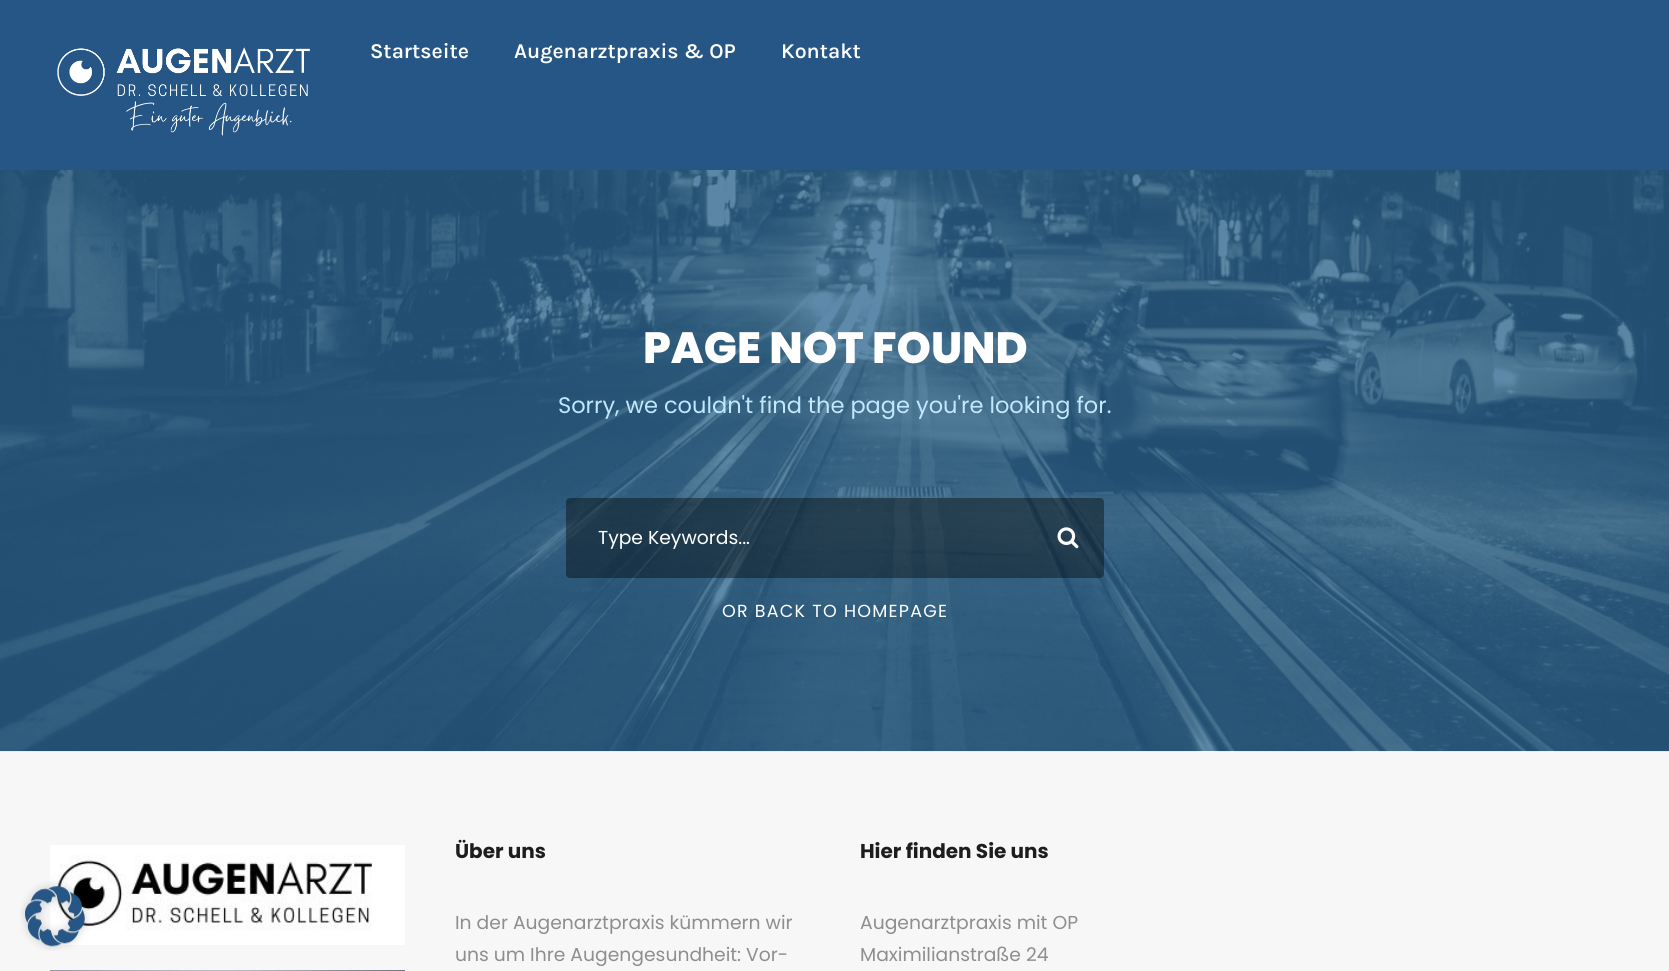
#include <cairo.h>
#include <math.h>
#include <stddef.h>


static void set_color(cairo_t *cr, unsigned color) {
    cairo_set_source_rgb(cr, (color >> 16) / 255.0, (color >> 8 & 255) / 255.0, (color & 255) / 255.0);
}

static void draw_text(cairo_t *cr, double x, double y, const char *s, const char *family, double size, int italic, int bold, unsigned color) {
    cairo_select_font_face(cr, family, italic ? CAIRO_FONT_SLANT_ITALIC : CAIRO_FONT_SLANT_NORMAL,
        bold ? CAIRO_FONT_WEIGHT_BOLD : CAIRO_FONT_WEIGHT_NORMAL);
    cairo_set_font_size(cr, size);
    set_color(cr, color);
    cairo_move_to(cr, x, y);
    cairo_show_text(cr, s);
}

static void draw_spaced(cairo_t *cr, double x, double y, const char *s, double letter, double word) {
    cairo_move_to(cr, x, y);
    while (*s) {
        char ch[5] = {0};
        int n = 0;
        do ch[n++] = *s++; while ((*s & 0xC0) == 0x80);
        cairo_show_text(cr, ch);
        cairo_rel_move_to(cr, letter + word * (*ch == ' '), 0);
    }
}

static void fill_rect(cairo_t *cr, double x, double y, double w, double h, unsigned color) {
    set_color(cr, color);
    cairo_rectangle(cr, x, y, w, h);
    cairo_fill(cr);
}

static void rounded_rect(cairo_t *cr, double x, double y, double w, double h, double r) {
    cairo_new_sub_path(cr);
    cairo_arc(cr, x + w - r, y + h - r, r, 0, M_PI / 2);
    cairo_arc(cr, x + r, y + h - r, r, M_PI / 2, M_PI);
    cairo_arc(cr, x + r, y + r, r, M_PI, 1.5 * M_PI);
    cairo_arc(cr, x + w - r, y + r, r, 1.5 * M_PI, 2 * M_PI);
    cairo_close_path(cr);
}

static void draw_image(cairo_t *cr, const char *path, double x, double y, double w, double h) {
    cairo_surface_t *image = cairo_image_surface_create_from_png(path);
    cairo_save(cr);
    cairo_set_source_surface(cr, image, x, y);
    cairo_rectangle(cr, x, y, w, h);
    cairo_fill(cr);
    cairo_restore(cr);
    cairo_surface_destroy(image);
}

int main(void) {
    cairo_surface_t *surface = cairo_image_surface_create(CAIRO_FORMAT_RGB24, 1669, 971);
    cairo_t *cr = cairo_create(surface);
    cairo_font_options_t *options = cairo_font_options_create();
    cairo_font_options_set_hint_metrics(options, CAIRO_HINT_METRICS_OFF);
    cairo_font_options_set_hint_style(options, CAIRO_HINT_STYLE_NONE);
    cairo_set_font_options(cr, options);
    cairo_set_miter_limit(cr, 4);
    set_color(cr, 0xF7F7F7);
    cairo_paint(cr);
    fill_rect(cr, 0, 0, 1669, 170, 0x255685);
    draw_image(cr, "assets/img1.png", 57, 47, 253, 89);
    draw_text(cr, 370, 58, "Startseite", "Karla SemiBold", 21.25, 0, 0, 0xFFFFFF);
    draw_text(cr, 514, 58, "Augenarztpraxis & OP", "Karla SemiBold", 21.25, 0, 0, 0xFFFFFF);
    draw_text(cr, 781, 58, "Kontakt", "Karla SemiBold", 21.25, 0, 0, 0xFFFFFF);
    draw_image(cr, "assets/img5.png", 50, 845, 355, 100);
    draw_image(cr, "assets/img2.png", 20, 881, 70, 70);
    fill_rect(cr, 0, 170, 1669, 581, 0x23618E);
    draw_image(cr, "assets/img3.png", 0, 170, 1669, 582);
    draw_text(cr, 643, 363, "PAGE NOT FOUND", "Poppins ExtraBold", 43.75, 0, 0, 0xFFFFFF);
    draw_text(cr, 558, 413, "Sorry, we couldn't find the page you're looking for.", "Poppins", 22.5, 0, 0, 0xC3E7FF);
    cairo_set_source_rgba(cr, 0, 0, 0, 0.4);
    rounded_rect(cr, 566, 498, 538, 80, 4);
    cairo_fill(cr);
    draw_text(cr, 598, 544, "Type Keywords...", "Poppins", 18.75, 0, 0, 0xFFFFFF);
    draw_image(cr, "assets/img4.png", 1057, 527, 22, 22);
    cairo_set_font_size(cr, 17.5);
    draw_spaced(cr, 722, 617, "OR BACK TO HOMEPAGE", 1.25, 0);
    draw_image(cr, "assets/img6.png", 50, 970, 355, 1);
    draw_text(cr, 455, 858, "Über uns", "Poppins", 20, 0, 1, 0x1D1D1D);
    draw_text(cr, 455, 929, "In der Augenarztpraxis kümmern wir", "Poppins", 18.75, 0, 0, 0x8E8E8E);
    draw_text(cr, 455, 961, "uns um Ihre Augengesundheit: Vor-", "Poppins", 18.75, 0, 0, 0x8E8E8E);
    draw_text(cr, 860, 858, "Hier finden Sie uns", "Poppins", 20, 0, 1, 0x1D1D1D);
    draw_text(cr, 860, 929, "Augenarztpraxis mit OP", "Poppins", 18.75, 0, 0, 0x8E8E8E);
    draw_text(cr, 860, 961, "Maximilianstraße 24", "Poppins", 18.75, 0, 0, 0x8E8E8E);
    cairo_surface_write_to_png(surface, "output.png");
    cairo_font_options_destroy(options);
    cairo_destroy(cr);
    cairo_surface_destroy(surface);
    return 0;
}
